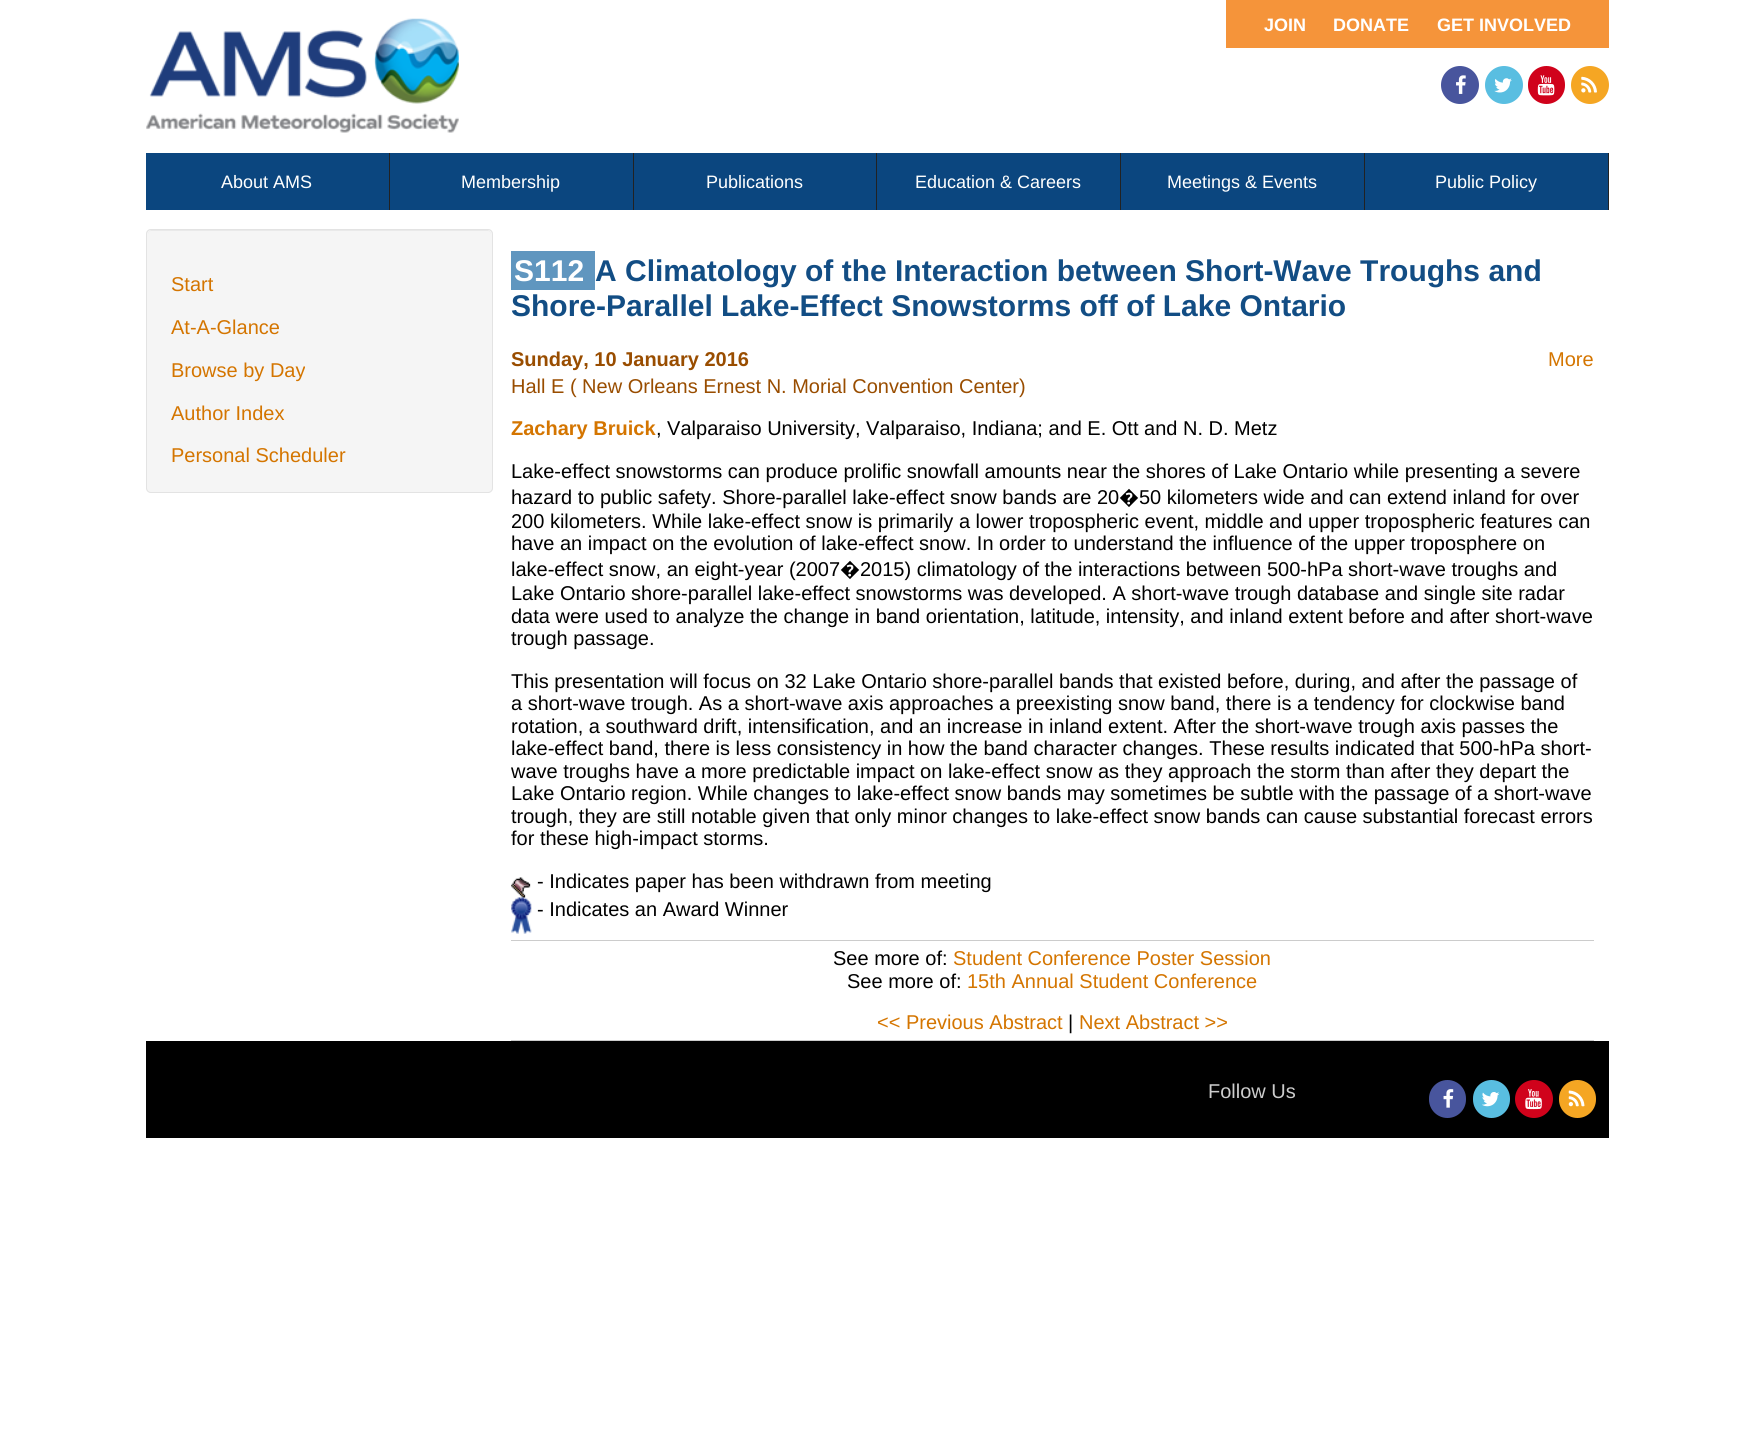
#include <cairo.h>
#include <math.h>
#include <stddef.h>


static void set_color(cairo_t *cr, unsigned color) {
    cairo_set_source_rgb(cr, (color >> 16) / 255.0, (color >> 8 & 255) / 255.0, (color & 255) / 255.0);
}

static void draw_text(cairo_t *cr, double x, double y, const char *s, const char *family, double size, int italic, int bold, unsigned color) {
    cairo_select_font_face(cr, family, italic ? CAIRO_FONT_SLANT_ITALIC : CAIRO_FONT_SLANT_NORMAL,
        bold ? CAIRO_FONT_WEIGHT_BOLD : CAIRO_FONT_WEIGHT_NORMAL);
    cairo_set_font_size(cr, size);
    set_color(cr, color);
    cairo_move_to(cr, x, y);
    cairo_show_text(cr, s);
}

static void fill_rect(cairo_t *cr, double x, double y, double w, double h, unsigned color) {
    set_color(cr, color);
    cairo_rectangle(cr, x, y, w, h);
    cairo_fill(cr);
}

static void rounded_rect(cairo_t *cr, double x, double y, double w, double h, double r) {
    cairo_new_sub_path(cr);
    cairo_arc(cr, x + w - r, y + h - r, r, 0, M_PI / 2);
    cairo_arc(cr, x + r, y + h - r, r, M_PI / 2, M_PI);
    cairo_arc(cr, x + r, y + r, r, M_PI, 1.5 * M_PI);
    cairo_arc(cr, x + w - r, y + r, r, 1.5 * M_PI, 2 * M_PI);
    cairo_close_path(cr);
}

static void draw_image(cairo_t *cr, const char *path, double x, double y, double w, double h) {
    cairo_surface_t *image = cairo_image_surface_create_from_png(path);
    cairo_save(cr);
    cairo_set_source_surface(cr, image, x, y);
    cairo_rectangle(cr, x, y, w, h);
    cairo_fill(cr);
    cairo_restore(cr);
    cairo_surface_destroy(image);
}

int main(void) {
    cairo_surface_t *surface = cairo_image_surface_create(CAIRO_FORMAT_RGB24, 1753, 1430);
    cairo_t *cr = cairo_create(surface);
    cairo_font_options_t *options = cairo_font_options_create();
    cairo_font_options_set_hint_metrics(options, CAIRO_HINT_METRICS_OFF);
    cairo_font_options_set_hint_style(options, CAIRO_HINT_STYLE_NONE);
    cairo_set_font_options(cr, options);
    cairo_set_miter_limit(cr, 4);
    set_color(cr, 0xFFFFFF);
    cairo_paint(cr);
    draw_image(cr, "assets/img1.png", 146, 18, 313, 115);
    fill_rect(cr, 1226, 0, 383, 48, 0xF5943A);
    draw_text(cr, 1264, 31, "JOIN", "Liberation Sans", 18, 0, 1, 0xFFFFFF);
    draw_text(cr, 1333, 31, "DONATE", "Liberation Sans", 18, 0, 1, 0xFFFFFF);
    draw_text(cr, 1437, 31, "GET INVOLVED", "Liberation Sans", 18, 0, 1, 0xFFFFFF);
    set_color(cr, 0x48559D);
    cairo_new_path(cr);
    cairo_arc(cr, 1460, 85, 19, 0, 2 * M_PI);
    cairo_fill(cr);
    draw_image(cr, "assets/img2.png", 1456, 75, 10, 19);
    set_color(cr, 0x59BEE1);
    cairo_arc(cr, 1504, 85, 19, 0, 2 * M_PI);
    cairo_fill(cr);
    draw_image(cr, "assets/img3.png", 1494, 78, 18, 15);
    set_color(cr, 0xD0021B);
    rounded_rect(cr, 1528, 66, 37, 38, 18.5);
    cairo_fill(cr);
    draw_image(cr, "assets/img4.png", 1537, 75, 18, 21);
    set_color(cr, 0xF5A623);
    cairo_arc(cr, 1590, 85, 19, 0, 2 * M_PI);
    cairo_fill(cr);
    draw_image(cr, "assets/img5.png", 1581, 76, 16, 17);
    fill_rect(cr, 146, 153, 1462, 57, 0x0B467F);
    fill_rect(cr, 389, 153, 1, 57, 0x222222);
    draw_text(cr, 221, 188, "About AMS", "Liberation Sans", 18, 0, 0, 0xFFFFFF);
    fill_rect(cr, 633, 153, 1, 57, 0x222222);
    draw_text(cr, 461, 188, "Membership", "Liberation Sans", 18, 0, 0, 0xFFFFFF);
    fill_rect(cr, 876, 153, 1, 57, 0x222222);
    draw_text(cr, 706, 188, "Publications", "Liberation Sans", 18, 0, 0, 0xFFFFFF);
    fill_rect(cr, 1120, 153, 1, 57, 0x222222);
    draw_text(cr, 915, 188, "Education & Careers", "Liberation Sans", 18, 0, 0, 0xFFFFFF);
    fill_rect(cr, 1364, 153, 1, 57, 0x222222);
    draw_text(cr, 1167, 188, "Meetings & Events", "Liberation Sans", 18, 0, 0, 0xFFFFFF);
    fill_rect(cr, 1608, 153, 1, 57, 0x222222);
    draw_text(cr, 1435, 188, "Public Policy", "Liberation Sans", 18, 0, 0, 0xFFFFFF);
    set_color(cr, 0xF5F5F5);
    rounded_rect(cr, 146, 229, 347, 264, 5);
    cairo_fill(cr);
    set_color(cr, 0xE9E9E9);
    cairo_new_path(cr);
    cairo_move_to(cr, 151, 231);
    cairo_line_to(cr, 488, 231);
    cairo_curve_to(cr, 490, 231, 491, 233, 491, 235);
    cairo_line_to(cr, 491, 234);
    cairo_curve_to(cr, 491, 232, 489, 230, 487, 230);
    cairo_line_to(cr, 152, 230);
    cairo_curve_to(cr, 150, 230, 148, 232, 148, 234);
    cairo_line_to(cr, 148, 235);
    cairo_curve_to(cr, 148, 233, 149, 231, 151, 231);
    cairo_close_path(cr);
    cairo_fill(cr);
    rounded_rect(cr, 146.5, 229.5, 346, 263, 4.5);
    set_color(cr, 0xE3E3E3);
    cairo_set_line_width(cr, 1);
    cairo_stroke(cr);
    draw_text(cr, 171, 291, "Start", "Liberation Sans", 20, 0, 0, 0xD47500);
    draw_text(cr, 171, 334, "At-A-Glance", "Liberation Sans", 20, 0, 0, 0xD47500);
    draw_text(cr, 171, 377, "Browse by Day", "Liberation Sans", 20, 0, 0, 0xD47500);
    draw_text(cr, 171, 420, "Author Index", "Liberation Sans", 20, 0, 0, 0xD47500);
    draw_text(cr, 171, 462, "Personal Scheduler", "Liberation Sans", 20, 0, 0, 0xD47500);
    fill_rect(cr, 511, 251, 84, 39, 0x6096BF);
    draw_text(cr, 514, 281, "S112", "Liberation Sans", 30, 0, 1, 0xFFFFFF);
    draw_text(cr, 595, 281, "A Climatology of the Interaction between Short-Wave Troughs and", "Liberation Sans", 30, 0, 1, 0x124D84);
    draw_text(cr, 511, 316, "Shore-Parallel Lake-Effect Snowstorms off of Lake Ontario", "Liberation Sans", 30, 0, 1, 0x124D84);
    draw_text(cr, 511, 366, "Sunday, 10 January 2016", "Liberation Sans", 20, 0, 1, 0x994D00);
    draw_text(cr, 1548, 366, "More", "Liberation Sans", 20, 0, 0, 0xD47500);
    draw_text(cr, 511, 393, "Hall E ( New Orleans Ernest N. Morial Convention Center)", "Liberation Sans", 20, 0, 0, 0x994D00);
    draw_text(cr, 511, 435, "Zachary Bruick", "Liberation Sans", 20, 0, 1, 0xD47500);
    draw_text(cr, 656, 435, ", Valparaiso University, Valparaiso, Indiana; and E. Ott and N. D. Metz", "Liberation Sans", 20, 0, 0, 0x000000);
    draw_text(cr, 511, 478, "Lake-effect snowstorms can produce prolific snowfall amounts near the shores of Lake Ontario while presenting a severe", "Liberation Sans", 20, 0, 0, 0x000000);
    draw_text(cr, 511, 504, "hazard to public safety. Shore-parallel lake-effect snow bands are 20", "Liberation Sans", 20, 0, 0, 0x000000);
    draw_text(cr, 1119, 504, "�", "Noto Sans", 20, 0, 0, 0x000000);
    draw_text(cr, 1139, 504, "50 kilometers wide and can extend inland for over", "Liberation Sans", 20, 0, 0, 0x000000);
    draw_text(cr, 511, 528, "200 kilometers. While lake-effect snow is primarily a lower tropospheric event, middle and upper tropospheric features can", "Liberation Sans", 20, 0, 0, 0x000000);
    draw_text(cr, 511, 550, "have an impact on the evolution of lake-effect snow. In order to understand the influence of the upper troposphere on", "Liberation Sans", 20, 0, 0, 0x000000);
    draw_text(cr, 511, 576, "lake-effect snow, an eight-year (2007", "Liberation Sans", 20, 0, 0, 0x000000);
    draw_text(cr, 840, 576, "�", "Noto Sans", 20, 0, 0, 0x000000);
    draw_text(cr, 860, 576, "2015) climatology of the interactions between 500-hPa short-wave troughs and", "Liberation Sans", 20, 0, 0, 0x000000);
    draw_text(cr, 511, 600, "Lake Ontario shore-parallel lake-effect snowstorms was developed. A short-wave trough database and single site radar", "Liberation Sans", 20, 0, 0, 0x000000);
    draw_text(cr, 511, 623, "data were used to analyze the change in band orientation, latitude, intensity, and inland extent before and after short-wave", "Liberation Sans", 20, 0, 0, 0x000000);
    draw_text(cr, 511, 645, "trough passage.", "Liberation Sans", 20, 0, 0, 0x000000);
    draw_text(cr, 511, 688, "This presentation will focus on 32 Lake Ontario shore-parallel bands that existed before, during, and after the passage of", "Liberation Sans", 20, 0, 0, 0x000000);
    draw_text(cr, 511, 710, "a short-wave trough. As a short-wave axis approaches a preexisting snow band, there is a tendency for clockwise band", "Liberation Sans", 20, 0, 0, 0x000000);
    draw_text(cr, 511, 733, "rotation, a southward drift, intensification, and an increase in inland extent. After the short-wave trough axis passes the", "Liberation Sans", 20, 0, 0, 0x000000);
    draw_text(cr, 511, 755, "lake-effect band, there is less consistency in how the band character changes. These results indicated that 500-hPa short-", "Liberation Sans", 20, 0, 0, 0x000000);
    draw_text(cr, 511, 778, "wave troughs have a more predictable impact on lake-effect snow as they approach the storm than after they depart the", "Liberation Sans", 20, 0, 0, 0x000000);
    draw_text(cr, 511, 800, "Lake Ontario region. While changes to lake-effect snow bands may sometimes be subtle with the passage of a short-wave", "Liberation Sans", 20, 0, 0, 0x000000);
    draw_text(cr, 511, 823, "trough, they are still notable given that only minor changes to lake-effect snow bands can cause substantial forecast errors", "Liberation Sans", 20, 0, 0, 0x000000);
    draw_text(cr, 511, 845, "for these high-impact storms.", "Liberation Sans", 20, 0, 0, 0x000000);
    draw_image(cr, "assets/img6.png", 511, 877, 20, 21);
    draw_text(cr, 537, 888, "- Indicates paper has been withdrawn from meeting", "Liberation Sans", 20, 0, 0, 0x000000);
    draw_image(cr, "assets/img7.png", 511, 897, 21, 37);
    draw_text(cr, 537, 916, "- Indicates an Award Winner", "Liberation Sans", 20, 0, 0, 0x000000);
    fill_rect(cr, 511, 940, 1083, 1, 0xCCCCCC);
    draw_text(cr, 833, 965, "See more of:", "Liberation Sans", 20, 0, 0, 0x000000);
    draw_text(cr, 953, 965, "Student Conference Poster Session", "Liberation Sans", 20, 0, 0, 0xD47500);
    draw_text(cr, 847, 988, "See more of:", "Liberation Sans", 20, 0, 0, 0x000000);
    draw_text(cr, 967, 988, "15th Annual Student Conference", "Liberation Sans", 20, 0, 0, 0xD47500);
    fill_rect(cr, 511, 1040, 1083, 1, 0xCCCCCC);
    draw_text(cr, 877, 1029, "<< Previous Abstract", "Liberation Sans", 20, 0, 0, 0xD47500);
    draw_text(cr, 1068, 1029, "|", "Liberation Sans", 20, 0, 0, 0x000000);
    draw_text(cr, 1079, 1029, "Next Abstract >>", "Liberation Sans", 20, 0, 0, 0xD47500);
    fill_rect(cr, 146, 1041, 1463, 97, 0x000000);
    draw_text(cr, 1208, 1098, "Follow Us", "Liberation Sans", 20, 0, 0, 0xCCCCCC);
    set_color(cr, 0x48559D);
    rounded_rect(cr, 1429, 1080, 37, 38, 18.5);
    cairo_fill(cr);
    draw_image(cr, "assets/img8.png", 1443, 1089, 11, 19);
    set_color(cr, 0x59BEE1);
    rounded_rect(cr, 1473, 1080, 37, 38, 18.5);
    cairo_fill(cr);
    draw_image(cr, "assets/img9.png", 1482, 1092, 18, 15);
    set_color(cr, 0xD0021B);
    cairo_arc(cr, 1534, 1099, 19, 0, 2 * M_PI);
    cairo_fill(cr);
    draw_image(cr, "assets/img10.png", 1525, 1089, 17, 21);
    set_color(cr, 0xF5A623);
    rounded_rect(cr, 1559, 1080, 37, 38, 18.5);
    cairo_fill(cr);
    draw_image(cr, "assets/img11.png", 1568, 1090, 17, 17);
    cairo_surface_write_to_png(surface, "output.png");
    cairo_font_options_destroy(options);
    cairo_destroy(cr);
    cairo_surface_destroy(surface);
    return 0;
}
